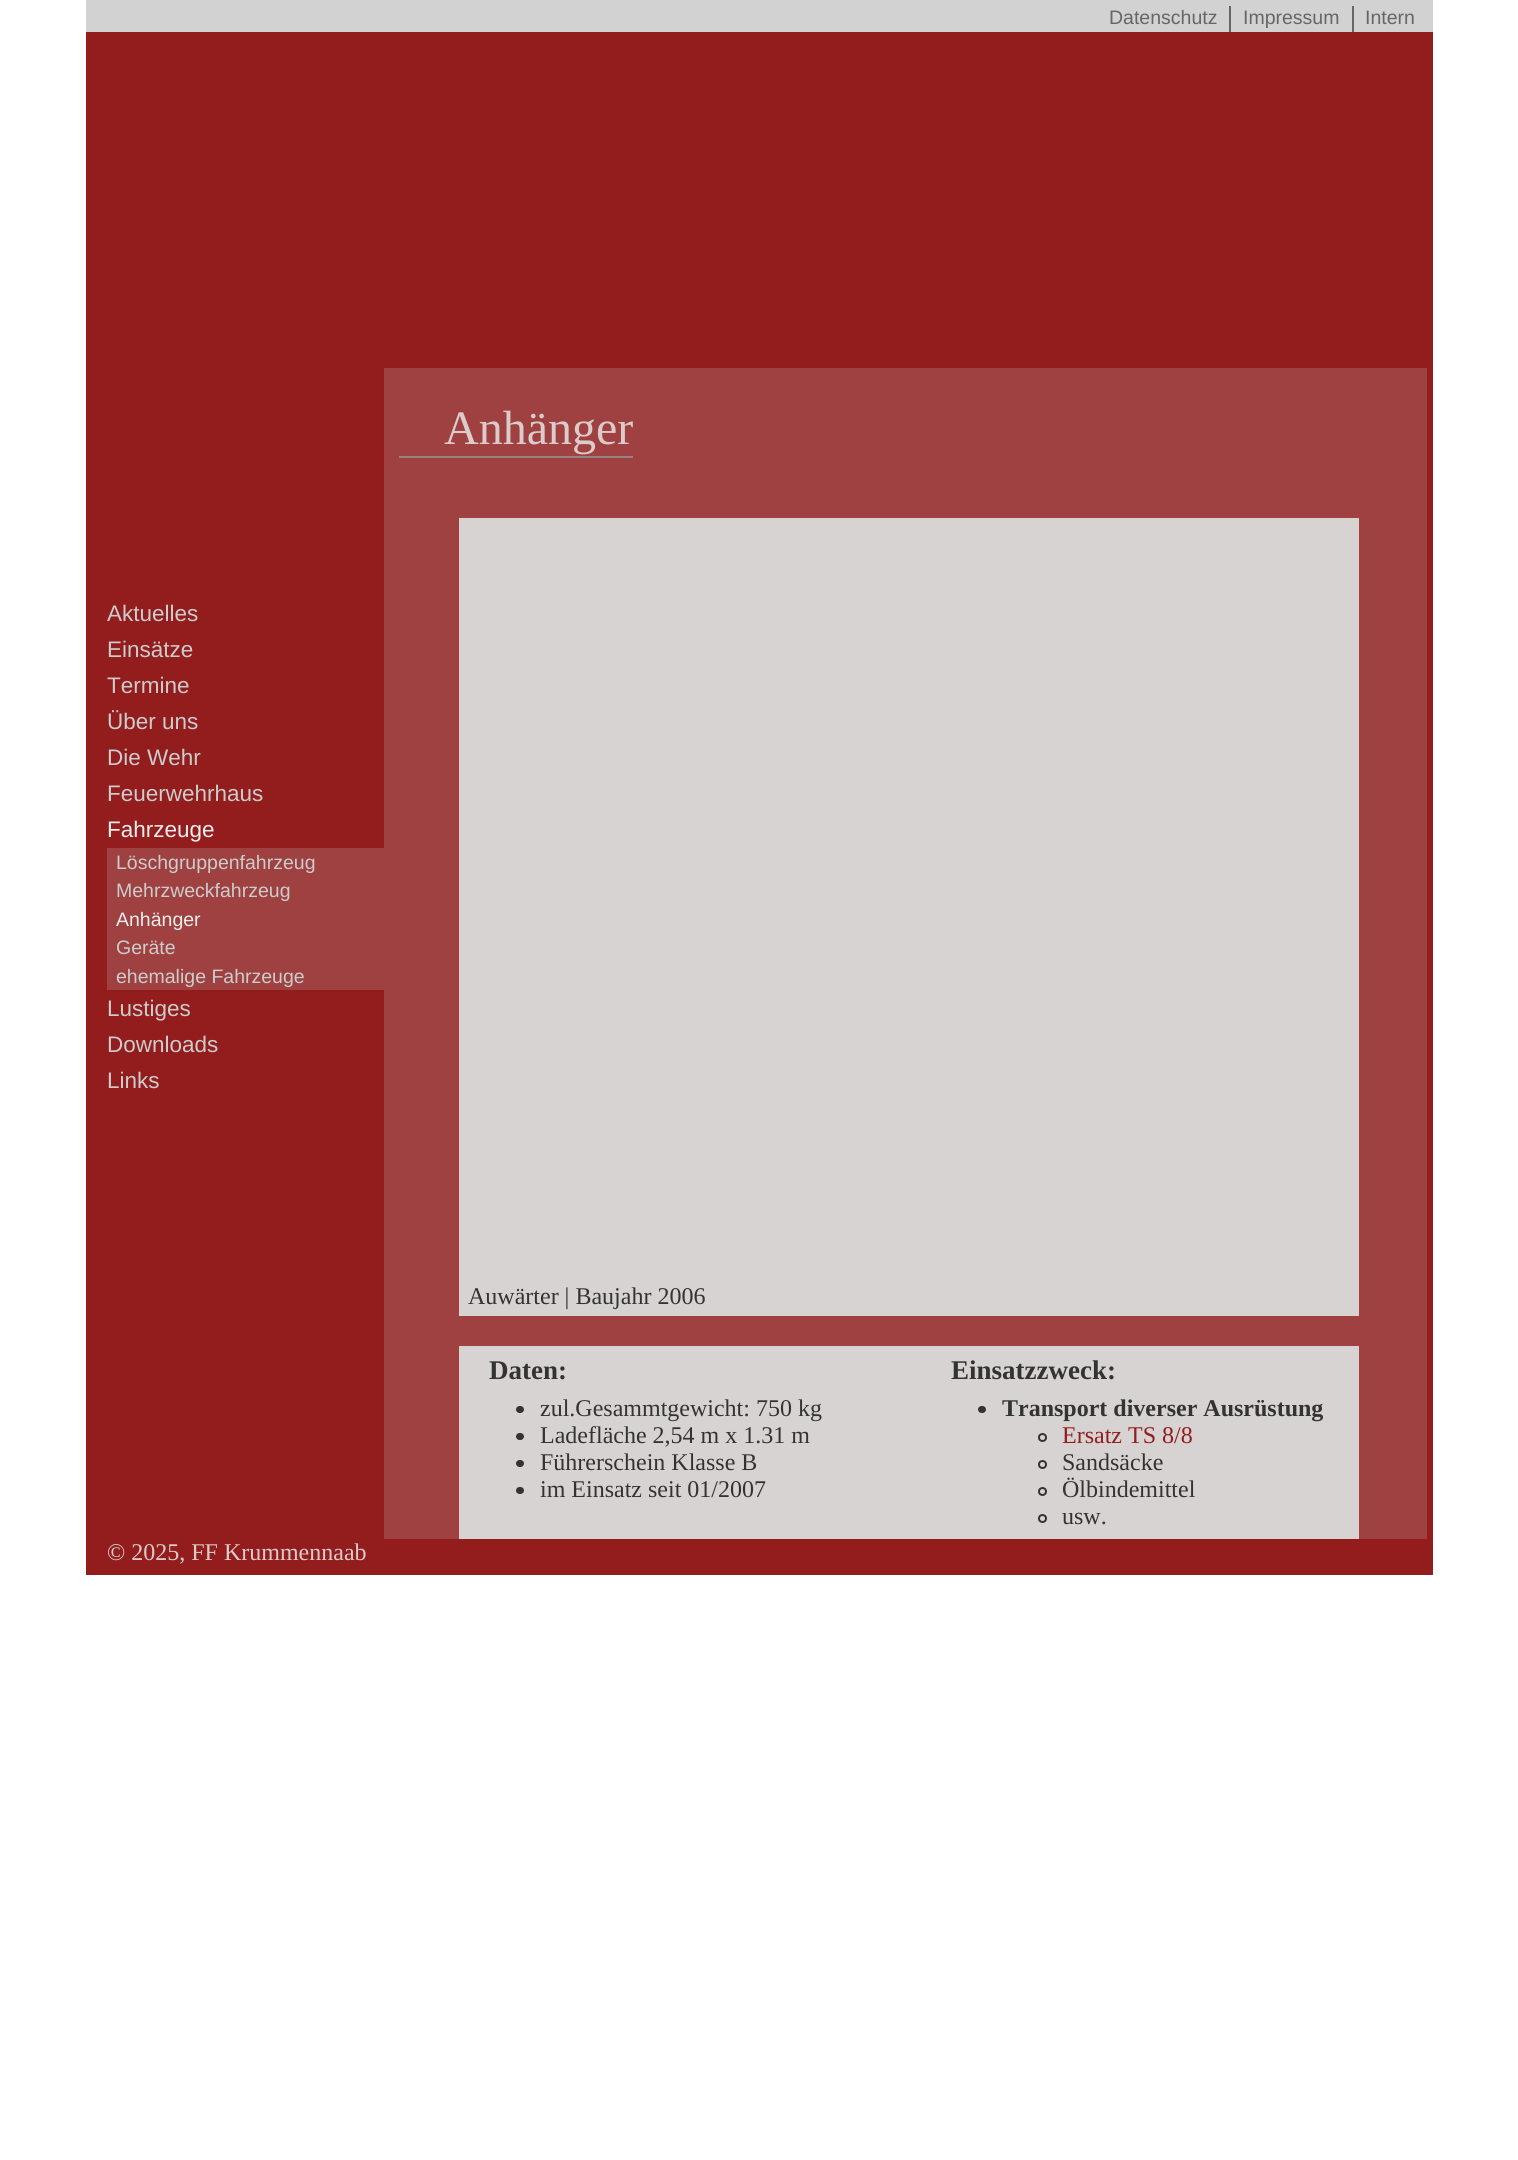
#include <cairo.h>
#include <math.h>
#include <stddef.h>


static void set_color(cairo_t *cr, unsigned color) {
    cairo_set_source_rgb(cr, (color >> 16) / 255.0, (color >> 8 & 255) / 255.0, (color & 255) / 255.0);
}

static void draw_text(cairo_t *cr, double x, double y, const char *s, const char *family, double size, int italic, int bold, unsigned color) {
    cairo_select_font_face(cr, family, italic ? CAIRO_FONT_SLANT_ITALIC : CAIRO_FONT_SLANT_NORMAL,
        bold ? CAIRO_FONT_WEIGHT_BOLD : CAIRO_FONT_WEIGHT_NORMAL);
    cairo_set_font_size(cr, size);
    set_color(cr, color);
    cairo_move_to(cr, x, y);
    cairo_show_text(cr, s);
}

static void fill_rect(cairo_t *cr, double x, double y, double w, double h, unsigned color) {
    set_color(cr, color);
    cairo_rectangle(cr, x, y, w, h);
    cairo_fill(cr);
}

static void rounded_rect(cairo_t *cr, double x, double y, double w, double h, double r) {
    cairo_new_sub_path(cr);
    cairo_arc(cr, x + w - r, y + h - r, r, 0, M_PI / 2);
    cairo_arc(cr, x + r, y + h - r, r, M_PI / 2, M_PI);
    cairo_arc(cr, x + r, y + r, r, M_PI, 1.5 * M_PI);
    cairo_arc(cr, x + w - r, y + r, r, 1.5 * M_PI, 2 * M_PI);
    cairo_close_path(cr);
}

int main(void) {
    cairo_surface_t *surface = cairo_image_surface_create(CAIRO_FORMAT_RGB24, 1518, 2160);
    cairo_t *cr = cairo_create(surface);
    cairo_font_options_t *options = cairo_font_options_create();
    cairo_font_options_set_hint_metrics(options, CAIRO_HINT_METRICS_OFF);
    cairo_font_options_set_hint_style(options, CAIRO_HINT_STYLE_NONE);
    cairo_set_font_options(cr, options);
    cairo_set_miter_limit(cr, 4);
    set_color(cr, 0xFFFFFF);
    cairo_paint(cr);
    fill_rect(cr, 86, 0, 1347, 32, 0xD2D2D2);
    fill_rect(cr, 1229, 6, 2, 26, 0x666666);
    draw_text(cr, 1109, 24, "Datenschutz", "Liberation Sans", 19.5, 0, 0, 0x666666);
    fill_rect(cr, 1352, 6, 2, 26, 0x666666);
    draw_text(cr, 1243, 24, "Impressum", "Liberation Sans", 19.5, 0, 0, 0x666666);
    draw_text(cr, 1365, 24, "Intern", "Liberation Sans", 19.5, 0, 0, 0x666666);
    fill_rect(cr, 86, 32, 1347, 1543, 0x931D1D);
    draw_text(cr, 107, 621, "Aktuelles", "Liberation Sans", 22.5, 0, 0, 0xCCCCCC);
    draw_text(cr, 107, 657, "Einsätze", "Liberation Sans", 22.5, 0, 0, 0xCCCCCC);
    draw_text(cr, 107, 693, "Termine", "Liberation Sans", 22.5, 0, 0, 0xCCCCCC);
    draw_text(cr, 107, 729, "Über uns", "Liberation Sans", 22.5, 0, 0, 0xCCCCCC);
    draw_text(cr, 107, 765, "Die Wehr", "Liberation Sans", 22.5, 0, 0, 0xCCCCCC);
    draw_text(cr, 107, 801, "Feuerwehrhaus", "Liberation Sans", 22.5, 0, 0, 0xCCCCCC);
    draw_text(cr, 107, 837, "Fahrzeuge", "Liberation Sans", 22.5, 0, 0, 0xEEEEEE);
    fill_rect(cr, 107, 848, 277, 142, 0xA04141);
    draw_text(cr, 116, 869, "Löschgruppenfahrzeug", "Liberation Sans", 19.5, 0, 0, 0xCCCCCC);
    draw_text(cr, 116, 897, "Mehrzweckfahrzeug", "Liberation Sans", 19.5, 0, 0, 0xCCCCCC);
    draw_text(cr, 116, 926, "Anhänger", "Liberation Sans", 19.5, 0, 0, 0xEEEEEE);
    draw_text(cr, 116, 954, "Geräte", "Liberation Sans", 19.5, 0, 0, 0xCCCCCC);
    draw_text(cr, 116, 983, "ehemalige Fahrzeuge", "Liberation Sans", 19.5, 0, 0, 0xCCCCCC);
    draw_text(cr, 107, 1016, "Lustiges", "Liberation Sans", 22.5, 0, 0, 0xCCCCCC);
    draw_text(cr, 107, 1052, "Downloads", "Liberation Sans", 22.5, 0, 0, 0xCCCCCC);
    draw_text(cr, 107, 1088, "Links", "Liberation Sans", 22.5, 0, 0, 0xCCCCCC);
    fill_rect(cr, 384, 368, 1043, 1171, 0xA04141);
    fill_rect(cr, 399, 456, 234, 2, 0x948181);
    draw_text(cr, 444, 444, "Anhänger", "Liberation Serif", 48, 0, 0, 0xDBCBCB);
    fill_rect(cr, 459, 518, 900, 798, 0xD7D3D3);
    draw_text(cr, 468, 1304, "Auwärter | Baujahr 2006", "Liberation Serif", 24, 0, 0, 0x333333);
    fill_rect(cr, 459, 1346, 900, 193, 0xD7D3D3);
    draw_text(cr, 489, 1379, "Daten:", "Liberation Serif", 27, 0, 1, 0x333333);
    rounded_rect(cr, 516, 1406, 8, 7, 3.5);
    cairo_fill(cr);
    draw_text(cr, 540, 1416, "zul.Gesammtgewicht: 750 kg", "Liberation Serif", 24, 0, 0, 0x333333);
    rounded_rect(cr, 516, 1433, 8, 7, 3.5);
    cairo_fill(cr);
    draw_text(cr, 540, 1443, "Ladefläche 2,54 m x 1.31 m", "Liberation Serif", 24, 0, 0, 0x333333);
    rounded_rect(cr, 516, 1460, 8, 7, 3.5);
    cairo_fill(cr);
    draw_text(cr, 540, 1470, "Führerschein Klasse B", "Liberation Serif", 24, 0, 0, 0x333333);
    rounded_rect(cr, 516, 1487, 8, 7, 3.5);
    cairo_fill(cr);
    draw_text(cr, 540, 1497, "im Einsatz seit 01/2007", "Liberation Serif", 24, 0, 0, 0x333333);
    draw_text(cr, 951, 1379, "Einsatzzweck:", "Liberation Serif", 27, 0, 1, 0x333333);
    rounded_rect(cr, 978, 1406, 8, 7, 3.5);
    cairo_fill(cr);
    draw_text(cr, 1002, 1416, "Transport diverser Ausrüstung", "Liberation Serif", 24, 0, 1, 0x333333);
    cairo_new_path(cr);
    cairo_arc(cr, 1042.5, 1437.5, 3.5, 0, 2 * M_PI);
    cairo_stroke(cr);
    draw_text(cr, 1062, 1443, "Ersatz TS 8/8", "Liberation Serif", 24, 0, 0, 0x931D1D);
    cairo_new_path(cr);
    cairo_arc(cr, 1042.5, 1464.5, 3.5, 0, 2 * M_PI);
    set_color(cr, 0x333333);
    cairo_stroke(cr);
    draw_text(cr, 1062, 1470, "Sandsäcke", "Liberation Serif", 24, 0, 0, 0x333333);
    cairo_new_path(cr);
    cairo_arc(cr, 1042.5, 1491.5, 3.5, 0, 2 * M_PI);
    cairo_stroke(cr);
    draw_text(cr, 1062, 1497, "Ölbindemittel", "Liberation Serif", 24, 0, 0, 0x333333);
    cairo_new_path(cr);
    cairo_arc(cr, 1042.5, 1518.5, 3.5, 0, 2 * M_PI);
    cairo_stroke(cr);
    draw_text(cr, 1062, 1524, "usw.", "Liberation Serif", 24, 0, 0, 0x333333);
    draw_text(cr, 107, 1560, "© 2025, FF Krummennaab", "Liberation Serif", 24, 0, 0, 0xDBCBCB);
    cairo_surface_write_to_png(surface, "output.png");
    cairo_font_options_destroy(options);
    cairo_destroy(cr);
    cairo_surface_destroy(surface);
    return 0;
}
